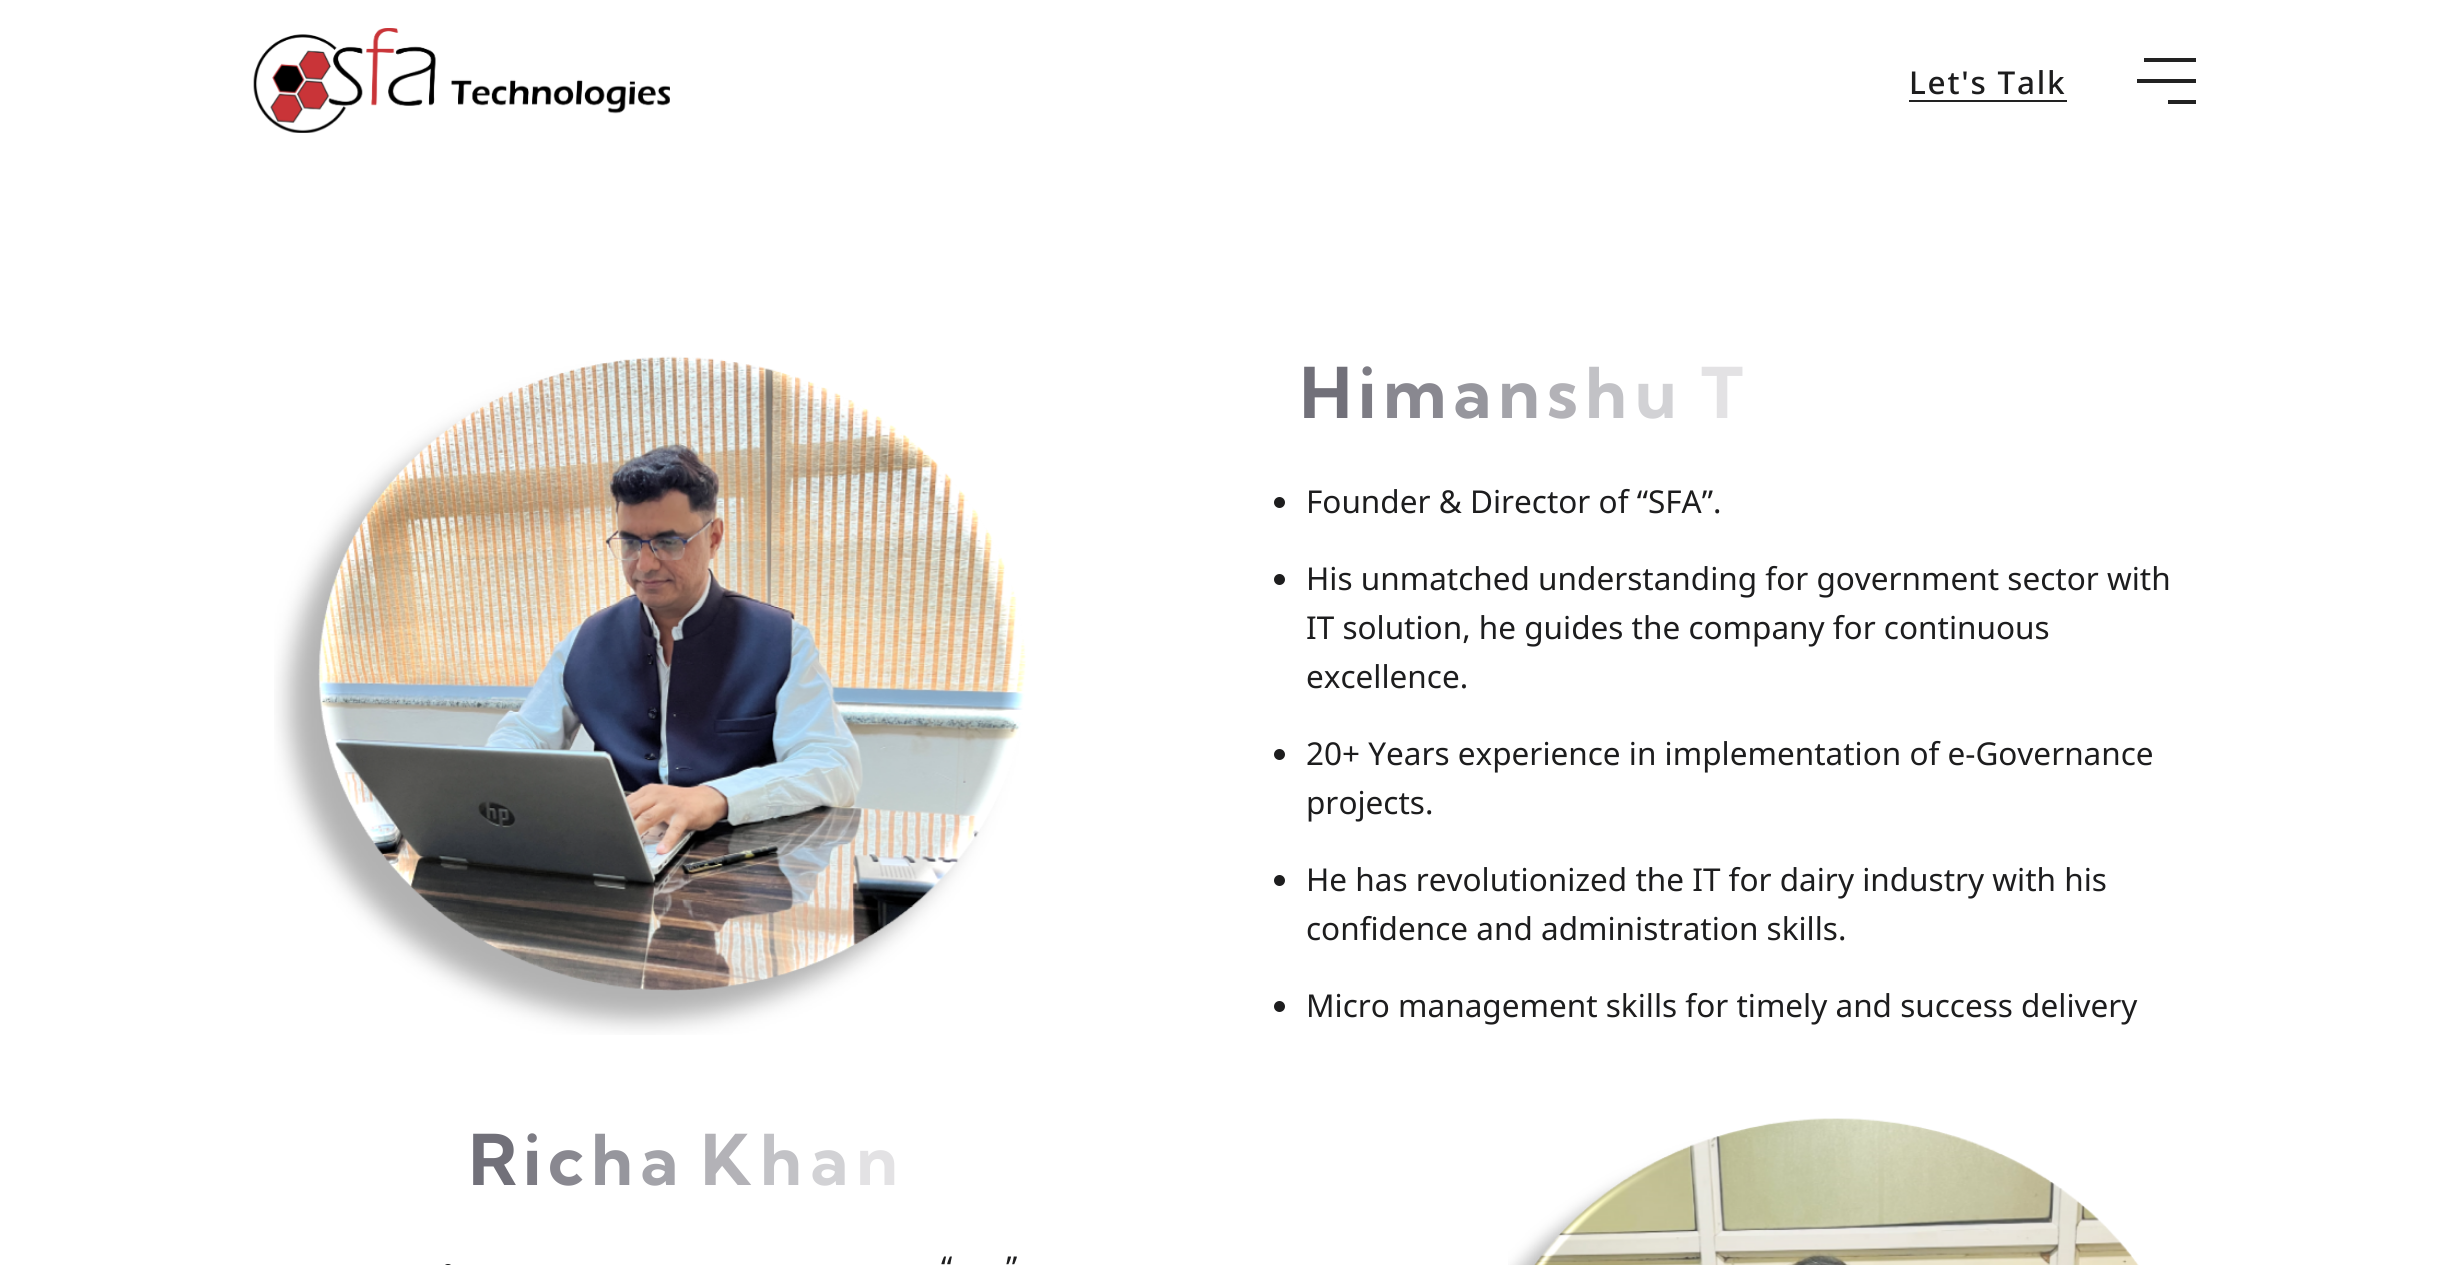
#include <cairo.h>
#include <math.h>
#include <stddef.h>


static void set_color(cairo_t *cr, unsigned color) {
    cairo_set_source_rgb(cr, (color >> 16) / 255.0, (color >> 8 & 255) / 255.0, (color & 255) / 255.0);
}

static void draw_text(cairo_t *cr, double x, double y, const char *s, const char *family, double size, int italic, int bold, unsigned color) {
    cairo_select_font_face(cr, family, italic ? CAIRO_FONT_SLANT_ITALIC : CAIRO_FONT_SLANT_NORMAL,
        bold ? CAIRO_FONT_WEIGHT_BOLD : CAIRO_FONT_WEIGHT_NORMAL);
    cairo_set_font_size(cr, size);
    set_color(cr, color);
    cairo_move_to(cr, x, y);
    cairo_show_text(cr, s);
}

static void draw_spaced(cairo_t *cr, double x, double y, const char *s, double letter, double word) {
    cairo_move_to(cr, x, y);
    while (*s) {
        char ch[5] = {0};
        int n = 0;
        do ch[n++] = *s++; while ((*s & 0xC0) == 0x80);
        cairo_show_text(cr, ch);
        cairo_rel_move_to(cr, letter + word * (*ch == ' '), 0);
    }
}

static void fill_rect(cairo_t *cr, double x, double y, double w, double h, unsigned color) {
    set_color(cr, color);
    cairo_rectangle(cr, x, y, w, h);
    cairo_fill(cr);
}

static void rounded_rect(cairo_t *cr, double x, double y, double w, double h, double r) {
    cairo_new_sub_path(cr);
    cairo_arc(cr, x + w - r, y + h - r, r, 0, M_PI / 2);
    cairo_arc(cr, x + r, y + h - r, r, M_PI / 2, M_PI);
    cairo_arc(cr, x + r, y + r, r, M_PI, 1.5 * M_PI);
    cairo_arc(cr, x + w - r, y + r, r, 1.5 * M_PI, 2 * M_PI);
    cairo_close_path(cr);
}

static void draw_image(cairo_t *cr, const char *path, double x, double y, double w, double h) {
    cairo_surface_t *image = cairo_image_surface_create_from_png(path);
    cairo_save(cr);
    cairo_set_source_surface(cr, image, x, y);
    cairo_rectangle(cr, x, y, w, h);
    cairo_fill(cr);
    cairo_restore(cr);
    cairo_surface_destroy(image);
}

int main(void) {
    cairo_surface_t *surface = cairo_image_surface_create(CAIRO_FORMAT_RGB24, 2447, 1265);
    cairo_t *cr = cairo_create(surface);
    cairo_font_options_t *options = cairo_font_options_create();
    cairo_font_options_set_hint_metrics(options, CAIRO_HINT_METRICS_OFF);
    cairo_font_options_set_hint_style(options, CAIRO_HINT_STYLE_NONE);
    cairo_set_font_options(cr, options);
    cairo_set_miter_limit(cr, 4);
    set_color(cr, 0xFFFFFF);
    cairo_paint(cr);
    draw_image(cr, "assets/img1.png", 253, 28, 417, 105);
    cairo_select_font_face(cr, "Noto Sans Medium", CAIRO_FONT_SLANT_NORMAL, CAIRO_FONT_WEIGHT_NORMAL);
    cairo_set_font_size(cr, 31.5);
    set_color(cr, 0x1D1D1E);
    draw_spaced(cr, 1909, 94, "Let's Talk", 1.75, 0);
    fill_rect(cr, 1909, 100, 158, 2, 0x222222);
    fill_rect(cr, 2144, 58, 52, 4, 0x222222);
    fill_rect(cr, 2137, 79, 59, 4, 0x222222);
    fill_rect(cr, 2168, 100, 28, 4, 0x222222);
    draw_image(cr, "assets/img2.png", 274, 356, 752, 679);
    draw_text(cr, 1300, 418, "H", "Kumbh Sans", 70, 0, 1, 0x717079);
    draw_text(cr, 1358, 418, "i", "Kumbh Sans", 70, 0, 1, 0x7D7C84);
    draw_text(cr, 1383, 418, "m", "Kumbh Sans", 70, 0, 1, 0x898890);
    draw_text(cr, 1453, 418, "a", "Kumbh Sans", 70, 0, 1, 0x96969D);
    draw_text(cr, 1498, 418, "n", "Kumbh Sans", 70, 0, 1, 0xA4A4AA);
    draw_text(cr, 1547, 418, "s", "Kumbh Sans", 70, 0, 1, 0xB3B2B7);
    draw_text(cr, 1585, 418, "h", "Kumbh Sans", 70, 0, 1, 0xC2C2C6);
    draw_text(cr, 1635, 418, "u", "Kumbh Sans", 70, 0, 1, 0xD2D2D5);
    draw_text(cr, 1701, 418, "T", "Kumbh Sans", 70, 0, 1, 0xE3E2E4);
    set_color(cr, 0x1D1D1E);
    cairo_new_path(cr);
    cairo_arc(cr, 1279.5, 502.5, 5.5, 0, 2 * M_PI);
    cairo_fill(cr);
    draw_text(cr, 1306, 513, "Founder & Director of “SFA”.", "Noto Sans", 31.5, 0, 0, 0x1D1D1E);
    cairo_new_path(cr);
    cairo_arc(cr, 1279.5, 579.5, 5.5, 0, 2 * M_PI);
    cairo_fill(cr);
    draw_text(cr, 1306, 590, "His unmatched understanding for government sector with", "Noto Sans", 31.5, 0, 0, 0x1D1D1E);
    draw_text(cr, 1306, 639, "IT solution, he guides the company for continuous", "Noto Sans", 31.5, 0, 0, 0x1D1D1E);
    draw_text(cr, 1306, 688, "excellence.", "Noto Sans", 31.5, 0, 0, 0x1D1D1E);
    cairo_new_path(cr);
    cairo_arc(cr, 1279.5, 754.5, 5.5, 0, 2 * M_PI);
    cairo_fill(cr);
    draw_text(cr, 1306, 765, "20+ Years experience in implementation of e-Governance", "Noto Sans", 31.5, 0, 0, 0x1D1D1E);
    draw_text(cr, 1306, 814, "projects.", "Noto Sans", 31.5, 0, 0, 0x1D1D1E);
    cairo_new_path(cr);
    cairo_arc(cr, 1279.5, 880.5, 5.5, 0, 2 * M_PI);
    cairo_fill(cr);
    draw_text(cr, 1306, 891, "He has revolutionized the IT for dairy industry with his", "Noto Sans", 31.5, 0, 0, 0x1D1D1E);
    draw_text(cr, 1306, 940, "confidence and administration skills.", "Noto Sans", 31.5, 0, 0, 0x1D1D1E);
    cairo_new_path(cr);
    cairo_arc(cr, 1279.5, 1006.5, 5.5, 0, 2 * M_PI);
    cairo_fill(cr);
    draw_text(cr, 1306, 1017, "Micro management skills for timely and success delivery", "Noto Sans", 31.5, 0, 0, 0x1D1D1E);
    draw_text(cr, 469, 1185, "R", "Kumbh Sans", 70, 0, 1, 0x717079);
    draw_text(cr, 523, 1185, "i", "Kumbh Sans", 70, 0, 1, 0x7D7C84);
    draw_text(cr, 548, 1185, "c", "Kumbh Sans", 70, 0, 1, 0x898890);
    draw_text(cr, 591, 1185, "h", "Kumbh Sans", 70, 0, 1, 0x96969D);
    draw_text(cr, 640, 1185, "a", "Kumbh Sans", 70, 0, 1, 0xA4A4AA);
    draw_text(cr, 701, 1185, "K", "Kumbh Sans", 70, 0, 1, 0xB3B2B7);
    draw_text(cr, 760, 1185, "h", "Kumbh Sans", 70, 0, 1, 0xC2C2C6);
    draw_text(cr, 810, 1185, "a", "Kumbh Sans", 70, 0, 1, 0xD2D2D5);
    draw_text(cr, 856, 1185, "n", "Kumbh Sans", 70, 0, 1, 0xE3E2E4);
    draw_text(cr, 941, 1279, "“", "Noto Sans", 31.5, 0, 0, 0x1D1D1E);
    draw_text(cr, 1006, 1279, "”", "Noto Sans", 31.5, 0, 0, 0x1D1D1E);
    rounded_rect(cr, 443, 1264, 10, 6, 5);
    cairo_fill(cr);
    draw_image(cr, "assets/img3.png", 1508, 1118, 631, 147);
    cairo_surface_write_to_png(surface, "output.png");
    cairo_font_options_destroy(options);
    cairo_destroy(cr);
    cairo_surface_destroy(surface);
    return 0;
}
